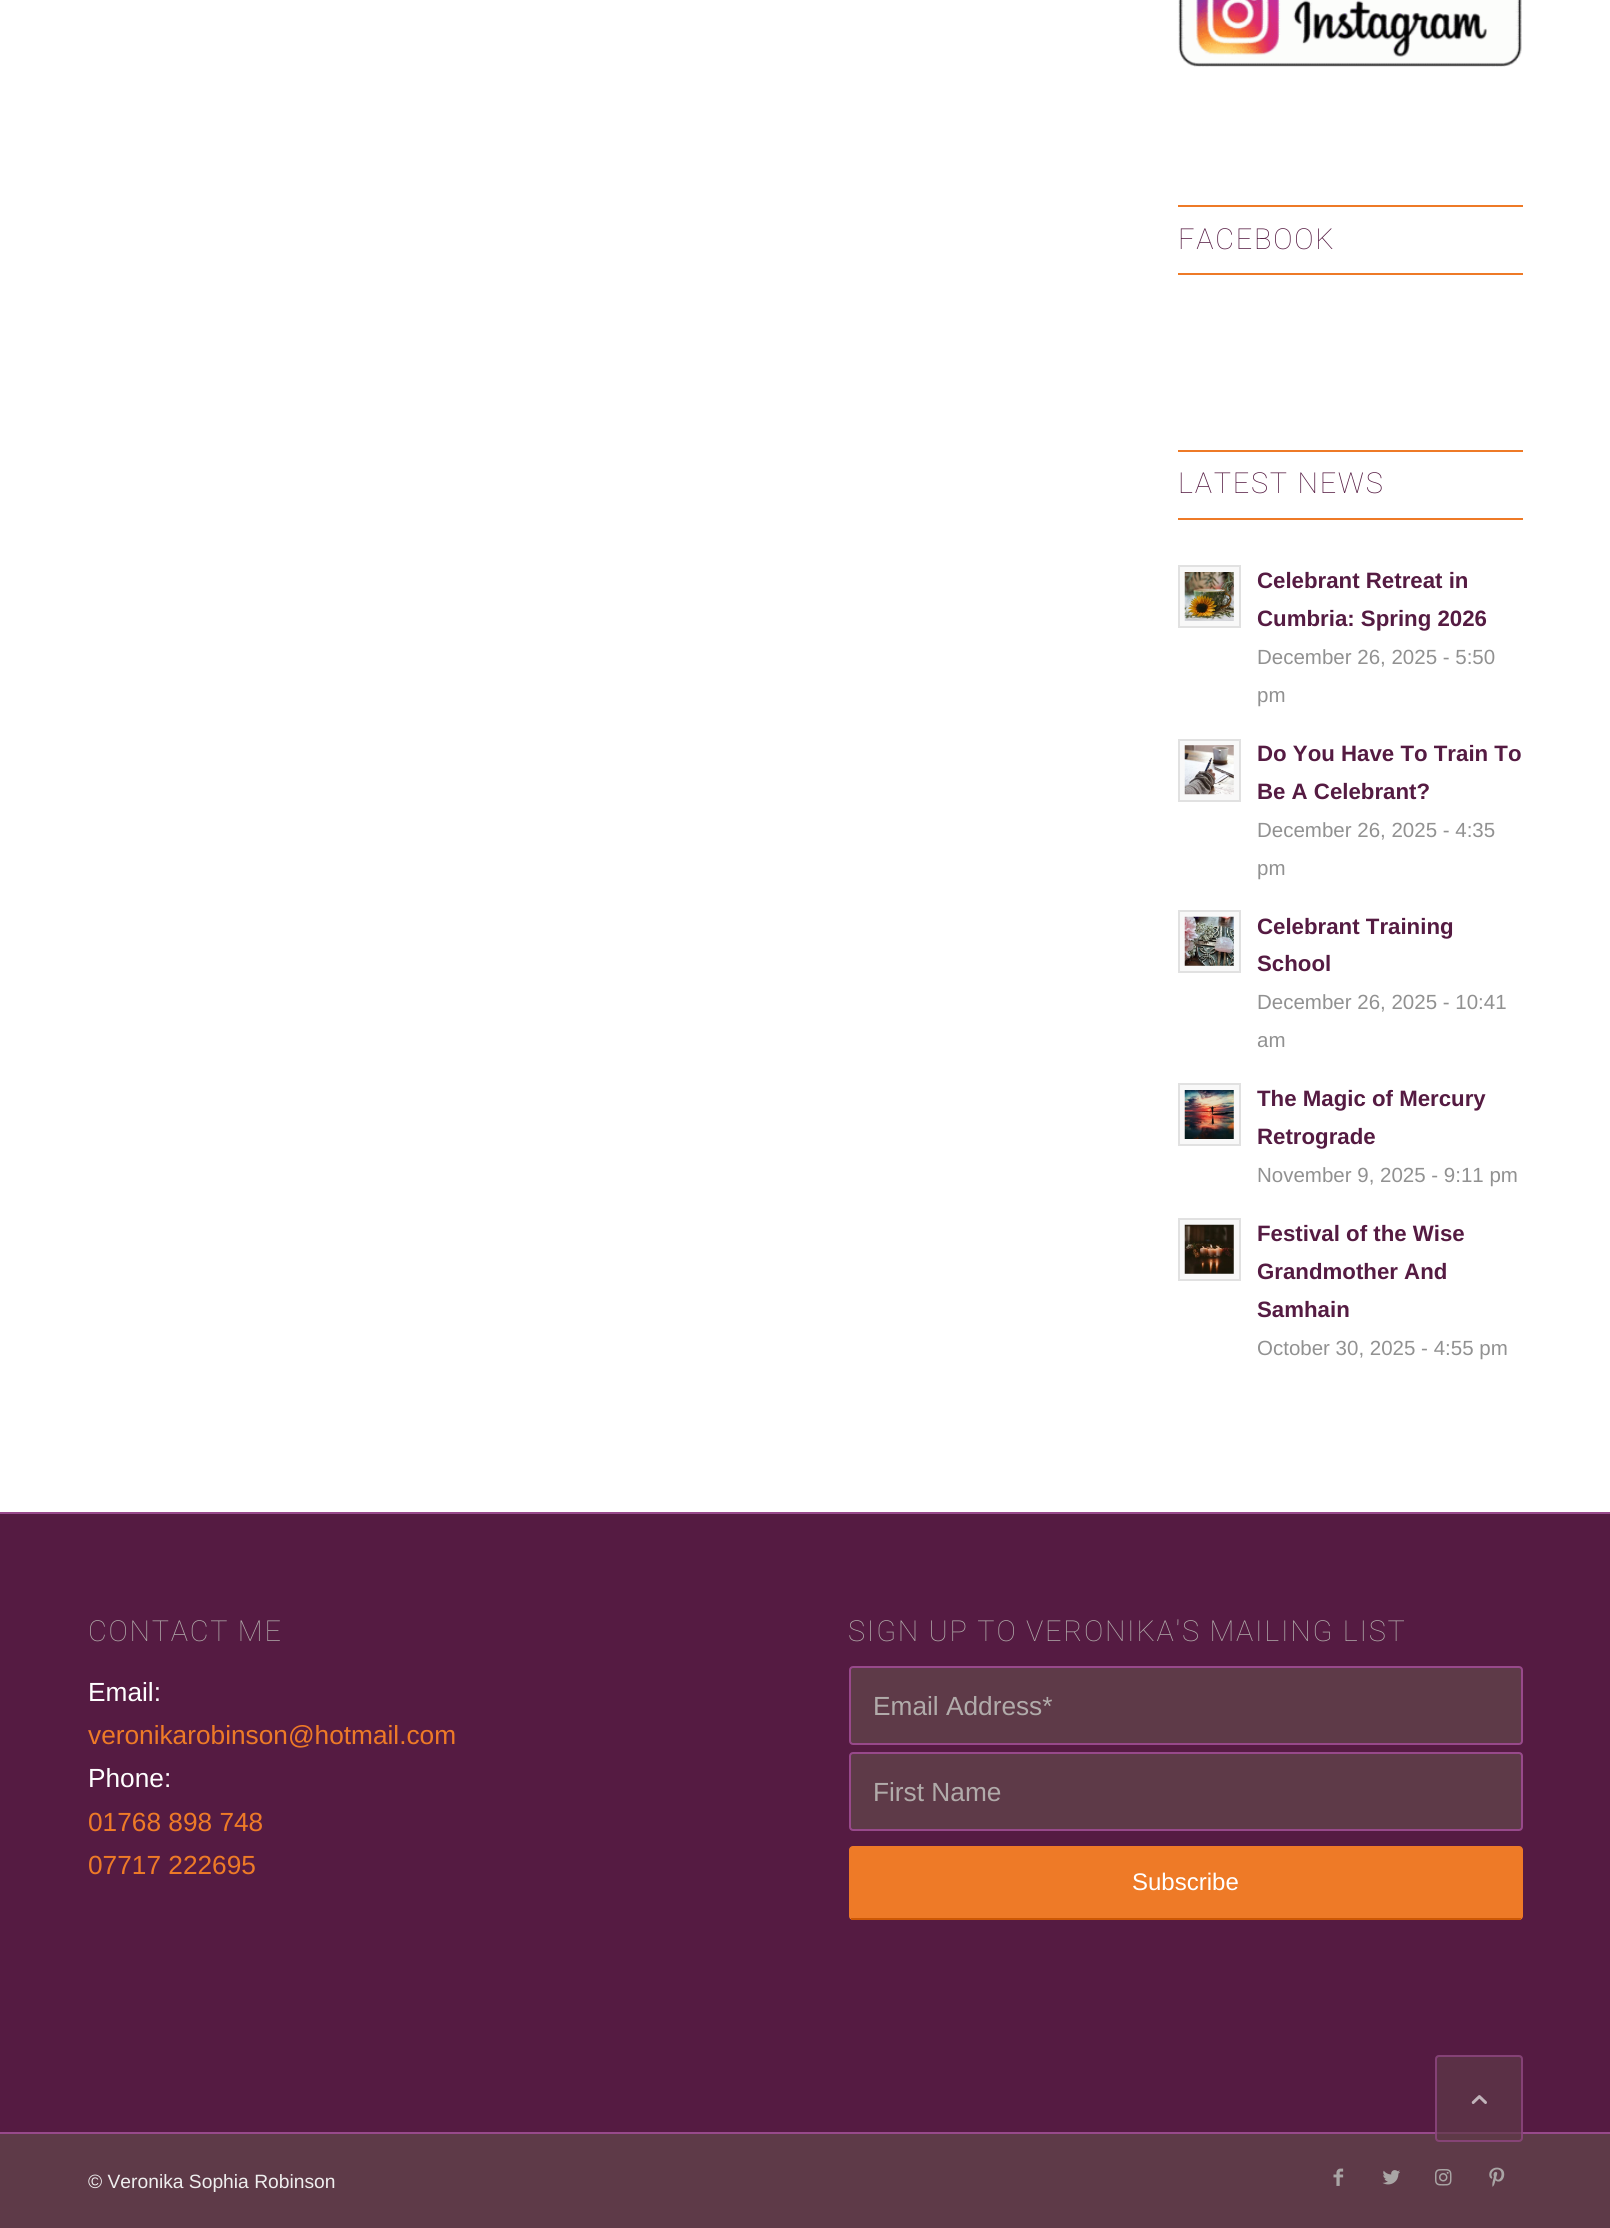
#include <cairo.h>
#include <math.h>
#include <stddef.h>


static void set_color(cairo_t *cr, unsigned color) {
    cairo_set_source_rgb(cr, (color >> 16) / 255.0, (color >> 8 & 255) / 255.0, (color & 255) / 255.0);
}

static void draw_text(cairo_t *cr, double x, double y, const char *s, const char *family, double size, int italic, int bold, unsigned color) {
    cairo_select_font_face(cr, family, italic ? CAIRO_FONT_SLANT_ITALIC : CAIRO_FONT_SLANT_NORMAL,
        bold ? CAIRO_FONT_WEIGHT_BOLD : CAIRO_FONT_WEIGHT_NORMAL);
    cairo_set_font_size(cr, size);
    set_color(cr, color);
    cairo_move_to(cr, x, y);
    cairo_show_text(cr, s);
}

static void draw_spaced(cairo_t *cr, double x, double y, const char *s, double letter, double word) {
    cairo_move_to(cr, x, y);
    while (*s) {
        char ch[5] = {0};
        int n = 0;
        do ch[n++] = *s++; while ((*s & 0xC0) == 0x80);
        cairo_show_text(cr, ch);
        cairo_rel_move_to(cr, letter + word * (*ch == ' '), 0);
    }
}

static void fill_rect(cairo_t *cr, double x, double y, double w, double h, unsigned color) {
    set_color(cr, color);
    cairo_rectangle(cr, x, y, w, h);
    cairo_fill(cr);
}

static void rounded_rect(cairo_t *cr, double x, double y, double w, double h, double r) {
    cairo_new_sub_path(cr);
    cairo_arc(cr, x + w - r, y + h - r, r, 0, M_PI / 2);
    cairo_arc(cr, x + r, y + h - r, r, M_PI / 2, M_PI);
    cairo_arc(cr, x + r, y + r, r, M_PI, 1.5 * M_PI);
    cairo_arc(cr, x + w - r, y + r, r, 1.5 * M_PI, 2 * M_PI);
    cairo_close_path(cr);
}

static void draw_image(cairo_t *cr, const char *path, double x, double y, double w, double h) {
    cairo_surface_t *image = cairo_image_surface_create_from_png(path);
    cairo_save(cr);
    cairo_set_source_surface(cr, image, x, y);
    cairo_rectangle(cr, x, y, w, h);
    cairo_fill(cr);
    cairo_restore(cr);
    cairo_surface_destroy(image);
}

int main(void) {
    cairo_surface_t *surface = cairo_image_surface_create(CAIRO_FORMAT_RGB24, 1610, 2228);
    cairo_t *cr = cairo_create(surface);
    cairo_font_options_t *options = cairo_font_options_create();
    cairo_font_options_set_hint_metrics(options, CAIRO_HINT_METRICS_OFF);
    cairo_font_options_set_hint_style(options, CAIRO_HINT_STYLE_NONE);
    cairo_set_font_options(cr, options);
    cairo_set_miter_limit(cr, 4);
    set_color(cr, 0xFFFFFF);
    cairo_paint(cr);
    draw_image(cr, "assets/img1.png", 1178, 0, 344, 67);
    fill_rect(cr, 1178, 205, 345, 2, 0xEE7A27);
    fill_rect(cr, 1178, 273, 345, 2, 0xEE7A27);
    cairo_select_font_face(cr, "Roboto Thin", CAIRO_FONT_SLANT_NORMAL, CAIRO_FONT_WEIGHT_NORMAL);
    cairo_set_font_size(cr, 28.9);
    set_color(cr, 0x551B42);
    draw_spaced(cr, 1178, 249, "FACEBOOK", 1.75, 0);
    fill_rect(cr, 1178, 450, 345, 2, 0xEE7A27);
    fill_rect(cr, 1178, 518, 345, 2, 0xEE7A27);
    set_color(cr, 0x551B42);
    draw_spaced(cr, 1178, 493, "LATEST NEWS", 1.75, 0);
    set_color(cr, 0xF8F8F8);
    cairo_rectangle(cr, 1179, 566, 61, 61);
    cairo_fill_preserve(cr);
    set_color(cr, 0xE1E1E1);
    cairo_stroke(cr);
    draw_image(cr, "assets/img2.png", 1184, 572, 50, 49);
    draw_text(cr, 1257, 588, "Celebrant Retreat in", "Liberation Sans", 22.25, 0, 1, 0x551B42);
    draw_text(cr, 1257, 626, "Cumbria: Spring 2026", "Liberation Sans", 22.25, 0, 1, 0x551B42);
    draw_text(cr, 1257, 664, "December 26, 2025 - 5:50", "Liberation Sans", 20.5, 0, 0, 0x919191);
    draw_text(cr, 1257, 702, "pm", "Liberation Sans", 20.5, 0, 0, 0x919191);
    set_color(cr, 0xF8F8F8);
    cairo_rectangle(cr, 1179, 740, 61, 61);
    cairo_fill_preserve(cr);
    set_color(cr, 0xE1E1E1);
    cairo_stroke(cr);
    draw_image(cr, "assets/img3.png", 1184, 745, 50, 50);
    draw_text(cr, 1257, 761, "Do You Have To Train To", "Liberation Sans", 22.25, 0, 1, 0x551B42);
    draw_text(cr, 1257, 799, "Be A Celebrant?", "Liberation Sans", 22.25, 0, 1, 0x551B42);
    draw_text(cr, 1257, 837, "December 26, 2025 - 4:35", "Liberation Sans", 20.5, 0, 0, 0x919191);
    draw_text(cr, 1257, 875, "pm", "Liberation Sans", 20.5, 0, 0, 0x919191);
    set_color(cr, 0xF8F8F8);
    cairo_rectangle(cr, 1179, 911, 61, 61);
    cairo_fill_preserve(cr);
    set_color(cr, 0xE1E1E1);
    cairo_stroke(cr);
    draw_image(cr, "assets/img4.png", 1184, 916, 50, 50);
    draw_text(cr, 1257, 934, "Celebrant Training", "Liberation Sans", 22.25, 0, 1, 0x551B42);
    draw_text(cr, 1257, 971, "School", "Liberation Sans", 22.25, 0, 1, 0x551B42);
    draw_text(cr, 1257, 1009, "December 26, 2025 - 10:41", "Liberation Sans", 20.5, 0, 0, 0x919191);
    draw_text(cr, 1257, 1047, "am", "Liberation Sans", 20.5, 0, 0, 0x919191);
    set_color(cr, 0xF8F8F8);
    cairo_rectangle(cr, 1179, 1084, 61, 61);
    cairo_fill_preserve(cr);
    set_color(cr, 0xE1E1E1);
    cairo_stroke(cr);
    draw_image(cr, "assets/img5.png", 1184, 1090, 50, 49);
    cairo_save(cr);
    cairo_rectangle(cr, 1257, 1080, 266, 114);
    cairo_clip(cr);
    draw_text(cr, 1257, 1106, "The Magic of Mercury", "Liberation Sans", 22.25, 0, 1, 0x551B42);
    cairo_restore(cr);
    draw_text(cr, 1257, 1144, "Retrograde", "Liberation Sans", 22.25, 0, 1, 0x551B42);
    draw_text(cr, 1257, 1182, "November 9, 2025 - 9:11 pm", "Liberation Sans", 20.5, 0, 0, 0x919191);
    set_color(cr, 0xF8F8F8);
    cairo_rectangle(cr, 1179, 1219, 61, 61);
    cairo_fill_preserve(cr);
    set_color(cr, 0xE1E1E1);
    cairo_stroke(cr);
    draw_image(cr, "assets/img6.png", 1184, 1224, 50, 50);
    draw_text(cr, 1257, 1241, "Festival of the Wise", "Liberation Sans", 22.25, 0, 1, 0x551B42);
    draw_text(cr, 1257, 1279, "Grandmother And", "Liberation Sans", 22.25, 0, 1, 0x551B42);
    draw_text(cr, 1257, 1317, "Samhain", "Liberation Sans", 22.25, 0, 1, 0x551B42);
    draw_text(cr, 1257, 1355, "October 30, 2025 - 4:55 pm", "Liberation Sans", 20.5, 0, 0, 0x919191);
    fill_rect(cr, 0, 1514, 1610, 618, 0x551B42);
    fill_rect(cr, 0, 1512, 1610, 2, 0x98498B);
    cairo_select_font_face(cr, "Roboto Thin", CAIRO_FONT_SLANT_NORMAL, CAIRO_FONT_WEIGHT_NORMAL);
    cairo_set_font_size(cr, 28.9);
    set_color(cr, 0xB1ABAA);
    draw_spaced(cr, 88, 1641, "CONTACT ME", 1.75, 0);
    draw_text(cr, 88, 1701, "Email:", "Liberation Sans", 26.25, 0, 0, 0xFFFFFF);
    draw_text(cr, 88, 1744, "veronikarobinson@hotmail.com", "Liberation Sans", 26.25, 0, 0, 0xEE7A27);
    draw_text(cr, 88, 1787, "Phone:", "Liberation Sans", 26.25, 0, 0, 0xFFFFFF);
    draw_text(cr, 88, 1831, "01768 898 748", "Liberation Sans", 26.25, 0, 0, 0xEE7A27);
    draw_text(cr, 88, 1874, "07717 222695", "Liberation Sans", 26.25, 0, 0, 0xEE7A27);
    cairo_select_font_face(cr, "Roboto Thin", CAIRO_FONT_SLANT_NORMAL, CAIRO_FONT_WEIGHT_NORMAL);
    cairo_set_font_size(cr, 28.9);
    set_color(cr, 0xB1ABAA);
    draw_spaced(cr, 848, 1641, "SIGN UP TO VERONIKA'S MAILING LIST", 1.75, 0);
    set_color(cr, 0x5E3A48);
    rounded_rect(cr, 850, 1667, 672, 77, 3);
    cairo_fill_preserve(cr);
    set_color(cr, 0x98498B);
    cairo_stroke(cr);
    draw_text(cr, 873, 1715, "Email Address*", "Liberation Sans", 26.25, 0, 0, 0xB1ABAA);
    set_color(cr, 0x5E3A48);
    rounded_rect(cr, 850, 1753, 672, 77, 3);
    cairo_fill_preserve(cr);
    set_color(cr, 0x98498B);
    cairo_stroke(cr);
    draw_text(cr, 873, 1801, "First Name", "Liberation Sans", 26.25, 0, 0, 0xB1ABAA);
    set_color(cr, 0xEE7A27);
    rounded_rect(cr, 849, 1846, 674, 74, 4);
    cairo_fill(cr);
    fill_rect(cr, 851, 1918, 670, 2, 0xCC5805);
    draw_text(cr, 1132, 1890, "Subscribe", "Liberation Sans", 24, 0, 0, 0xFFFFFF);
    fill_rect(cr, 0, 2134, 1610, 94, 0x5E3A48);
    fill_rect(cr, 0, 2132, 1610, 2, 0x98498B);
    draw_text(cr, 88, 2188, "© Veronika Sophia Robinson", "Liberation Sans", 19.25, 0, 0, 0xEEEEEE);
    draw_image(cr, "assets/img7.png", 1333, 2168, 11, 18);
    draw_image(cr, "assets/img8.png", 1382, 2170, 18, 15);
    draw_image(cr, "assets/img9.png", 1435, 2169, 17, 17);
    draw_image(cr, "assets/img10.png", 1489, 2167, 16, 20);
    cairo_set_source_rgba(cr, 0.369, 0.227, 0.282, 0.7);
    rounded_rect(cr, 1435, 2055, 88, 87, 4);
    cairo_fill(cr);
    rounded_rect(cr, 1436, 2056, 86, 85, 3);
    cairo_set_source_rgba(cr, 0.596, 0.286, 0.545, 0.7);
    cairo_stroke(cr);
    draw_image(cr, "assets/img11.png", 1471, 2095, 16, 9);
    cairo_surface_write_to_png(surface, "output.png");
    cairo_font_options_destroy(options);
    cairo_destroy(cr);
    cairo_surface_destroy(surface);
    return 0;
}
